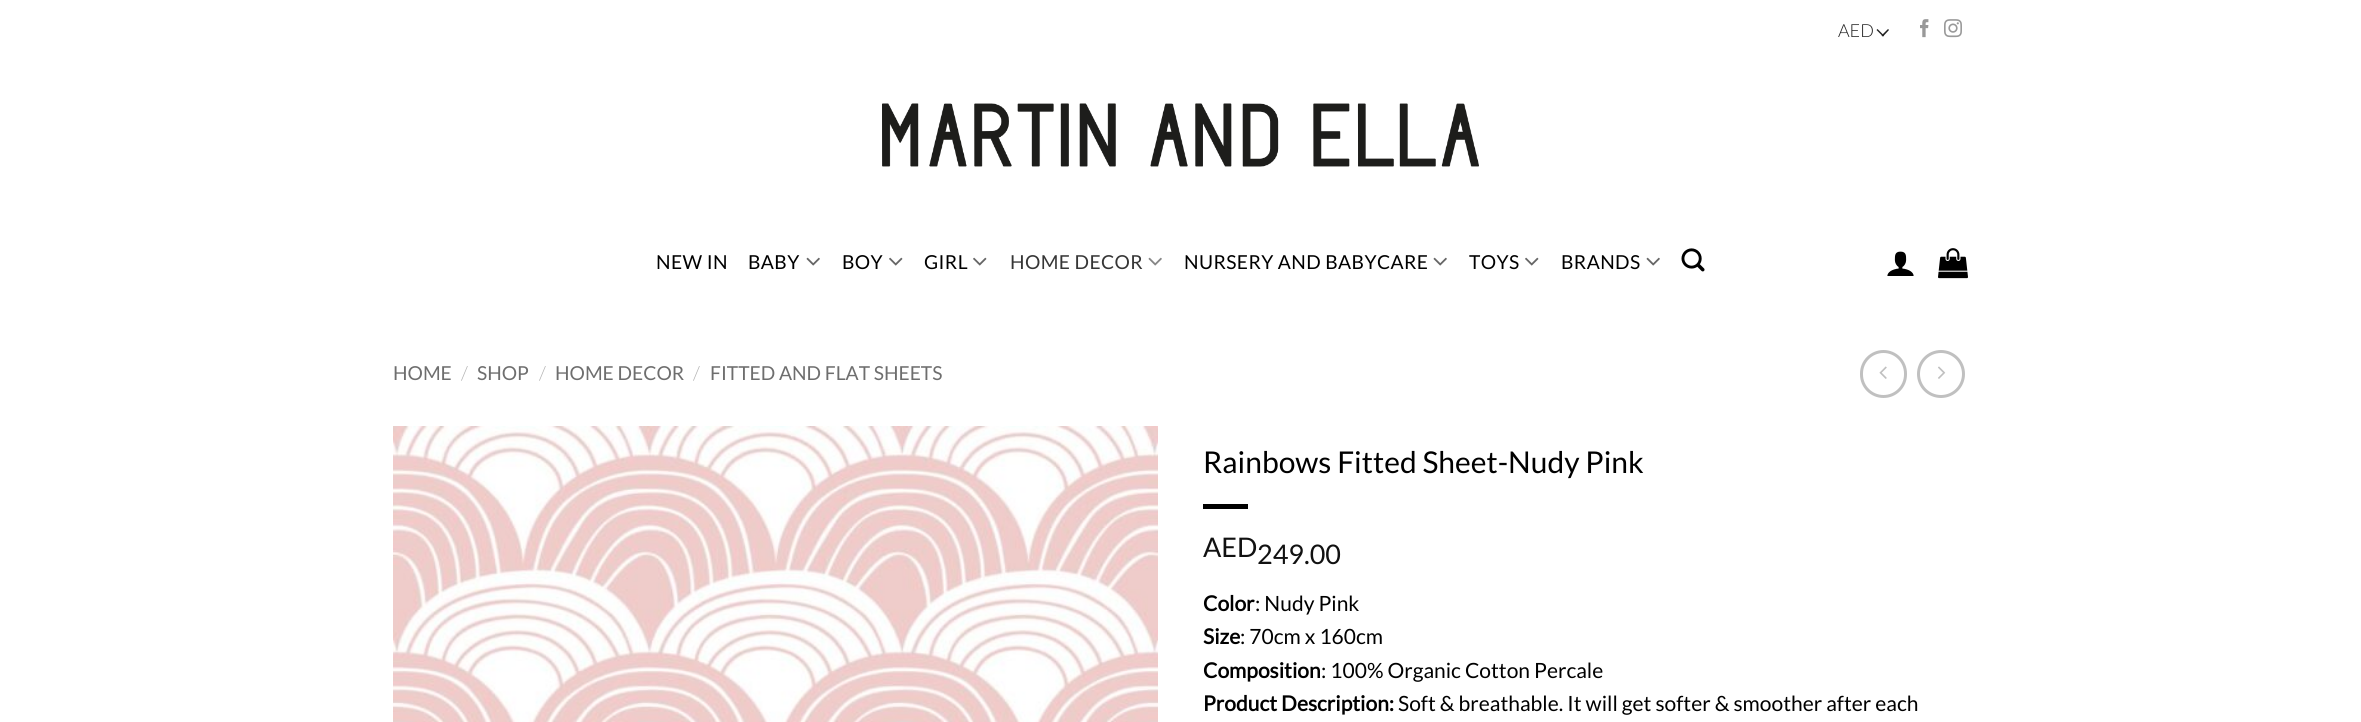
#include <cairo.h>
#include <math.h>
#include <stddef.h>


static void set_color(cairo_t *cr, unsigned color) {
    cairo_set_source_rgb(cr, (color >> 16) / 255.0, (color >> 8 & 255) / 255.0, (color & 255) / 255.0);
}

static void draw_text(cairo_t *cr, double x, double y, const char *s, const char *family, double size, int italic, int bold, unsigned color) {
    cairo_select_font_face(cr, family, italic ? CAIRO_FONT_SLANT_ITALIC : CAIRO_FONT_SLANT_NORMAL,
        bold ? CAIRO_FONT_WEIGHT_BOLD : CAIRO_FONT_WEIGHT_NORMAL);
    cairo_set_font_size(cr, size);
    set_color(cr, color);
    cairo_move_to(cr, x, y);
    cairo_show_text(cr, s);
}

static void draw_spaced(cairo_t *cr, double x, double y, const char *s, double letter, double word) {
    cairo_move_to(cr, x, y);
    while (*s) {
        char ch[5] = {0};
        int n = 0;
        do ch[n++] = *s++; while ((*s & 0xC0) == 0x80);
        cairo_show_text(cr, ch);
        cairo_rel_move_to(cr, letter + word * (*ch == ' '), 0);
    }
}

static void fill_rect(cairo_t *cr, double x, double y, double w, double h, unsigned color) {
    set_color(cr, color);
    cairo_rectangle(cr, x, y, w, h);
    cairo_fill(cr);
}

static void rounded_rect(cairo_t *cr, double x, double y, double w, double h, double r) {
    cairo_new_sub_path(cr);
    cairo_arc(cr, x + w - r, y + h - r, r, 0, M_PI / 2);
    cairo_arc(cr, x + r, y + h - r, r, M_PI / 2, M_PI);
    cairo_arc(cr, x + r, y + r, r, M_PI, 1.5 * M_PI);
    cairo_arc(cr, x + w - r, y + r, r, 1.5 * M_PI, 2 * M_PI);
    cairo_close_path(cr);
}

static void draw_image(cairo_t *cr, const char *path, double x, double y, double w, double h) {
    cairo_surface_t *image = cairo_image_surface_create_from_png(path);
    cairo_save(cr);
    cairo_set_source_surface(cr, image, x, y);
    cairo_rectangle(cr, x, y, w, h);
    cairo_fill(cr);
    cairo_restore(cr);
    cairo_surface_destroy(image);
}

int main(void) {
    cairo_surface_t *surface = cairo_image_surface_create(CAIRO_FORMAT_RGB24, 2361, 722);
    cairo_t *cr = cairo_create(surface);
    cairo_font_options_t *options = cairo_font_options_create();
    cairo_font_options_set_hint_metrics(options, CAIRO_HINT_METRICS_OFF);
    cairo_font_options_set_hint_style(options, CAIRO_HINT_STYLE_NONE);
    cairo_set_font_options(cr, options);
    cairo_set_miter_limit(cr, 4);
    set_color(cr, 0xFFFFFF);
    cairo_paint(cr);
    draw_text(cr, 1838, 37, "AED", "Lato Light", 18, 0, 0, 0x212121);
    cairo_new_path(cr);
    cairo_move_to(cr, 1888, 29);
    cairo_line_to(cr, 1889, 30);
    cairo_line_to(cr, 1883, 36.5);
    cairo_line_to(cr, 1881.5, 35.5);
    cairo_close_path(cr);
    cairo_fill(cr);
    cairo_new_path(cr);
    cairo_move_to(cr, 1877.5, 29);
    cairo_line_to(cr, 1884, 35.5);
    cairo_line_to(cr, 1883, 36.5);
    cairo_line_to(cr, 1876.5, 30);
    cairo_close_path(cr);
    cairo_fill(cr);
    draw_image(cr, "assets/img1.png", 1920, 19, 9, 19);
    draw_image(cr, "assets/img2.png", 1944, 19, 18, 19);
    draw_image(cr, "assets/img3.png", 882, 103, 597, 64);
    cairo_select_font_face(cr, "Lato", CAIRO_FONT_SLANT_NORMAL, CAIRO_FONT_WEIGHT_NORMAL);
    cairo_set_font_size(cr, 19.25);
    set_color(cr, 0x000000);
    draw_spaced(cr, 656, 269, "NEW IN", 0.4, 0);
    draw_spaced(cr, 748, 269, "BABY", 0.4, 0);
    draw_image(cr, "assets/img4.png", 806, 257, 14, 9);
    draw_spaced(cr, 842, 269, "BOY", 0.4, 0);
    draw_image(cr, "assets/img5.png", 889, 257, 14, 9);
    draw_spaced(cr, 924, 269, "GIRL", 0.4, 0);
    draw_image(cr, "assets/img5.png", 973, 257, 14, 9);
    set_color(cr, 0x363636);
    draw_spaced(cr, 1010, 269, "HOME DECOR", 0.4, 0);
    draw_image(cr, "assets/img6.png", 1148, 257, 14, 9);
    set_color(cr, 0x000000);
    draw_spaced(cr, 1184, 269, "NURSERY AND BABYCARE", 0.4, 0);
    draw_image(cr, "assets/img4.png", 1433, 257, 14, 9);
    draw_spaced(cr, 1469, 269, "TOYS", 0.4, 0);
    draw_image(cr, "assets/img5.png", 1525, 257, 14, 9);
    draw_spaced(cr, 1561, 269, "BRANDS", 0.4, 0);
    draw_image(cr, "assets/img4.png", 1646, 257, 14, 9);
    draw_image(cr, "assets/img7.png", 1681, 248, 24, 24);
    draw_image(cr, "assets/img8.png", 1887, 251, 27, 25);
    draw_image(cr, "assets/img9.png", 1938, 248, 30, 31);
    draw_text(cr, 393, 380, "HOME", "Lato", 19.25, 0, 0, 0x6E6E6E);
    draw_text(cr, 461, 380, "/", "Lato Light", 19.25, 0, 0, 0xB2B2B2);
    draw_text(cr, 477, 380, "SHOP", "Lato", 19.25, 0, 0, 0x6E6E6E);
    draw_text(cr, 539, 380, "/", "Lato Light", 19.25, 0, 0, 0xB2B2B2);
    draw_text(cr, 555, 380, "HOME DECOR", "Lato", 19.25, 0, 0, 0x6E6E6E);
    draw_text(cr, 693, 380, "/", "Lato Light", 19.25, 0, 0, 0xB2B2B2);
    draw_text(cr, 710, 380, "FITTED AND FLAT SHEETS", "Lato", 19.25, 0, 0, 0x6E6E6E);
    rounded_rect(cr, 1861.5, 351.5, 44, 45, 22);
    set_color(cr, 0xC0C0C0);
    cairo_set_line_width(cr, 3);
    cairo_stroke(cr);
    draw_image(cr, "assets/img10.png", 1879, 366, 8, 13);
    cairo_arc(cr, 1941, 374, 22.5, 0, 2 * M_PI);
    cairo_stroke(cr);
    draw_image(cr, "assets/img11.png", 1938, 366, 8, 13);
    draw_image(cr, "assets/img12.png", 393, 426, 765, 296);
    draw_text(cr, 1203, 473, "Rainbows Fitted Sheet-Nudy Pink", "Lato", 30, 0, 0, 0x000000);
    fill_rect(cr, 1203, 504, 45, 5, 0x000000);
    draw_text(cr, 1203, 557, "AED", "Lato", 27, 0, 0, 0x111111);
    draw_text(cr, 1257, 564, "249.00", "Lato", 27, 0, 0, 0x111111);
    draw_text(cr, 1203, 611, "Color", "Lato", 21, 0, 1, 0x000000);
    draw_text(cr, 1255, 611, ": Nudy Pink", "Lato", 21, 0, 0, 0x000000);
    draw_text(cr, 1203, 644, "Size", "Lato", 21, 0, 1, 0x000000);
    draw_text(cr, 1240, 644, ": 70cm x 160cm", "Lato", 21, 0, 0, 0x000000);
    draw_text(cr, 1203, 678, "Composition", "Lato", 21, 0, 1, 0x000000);
    draw_text(cr, 1321, 678, ": 100% Organic Cotton Percale", "Lato", 21, 0, 0, 0x000000);
    draw_text(cr, 1203, 711, "Product Description:", "Lato", 21, 0, 1, 0x000000);
    draw_text(cr, 1398, 711, "Soft & breathable. It will get softer & smoother after each", "Lato", 21, 0, 0, 0x000000);
    cairo_surface_write_to_png(surface, "output.png");
    cairo_font_options_destroy(options);
    cairo_destroy(cr);
    cairo_surface_destroy(surface);
    return 0;
}
